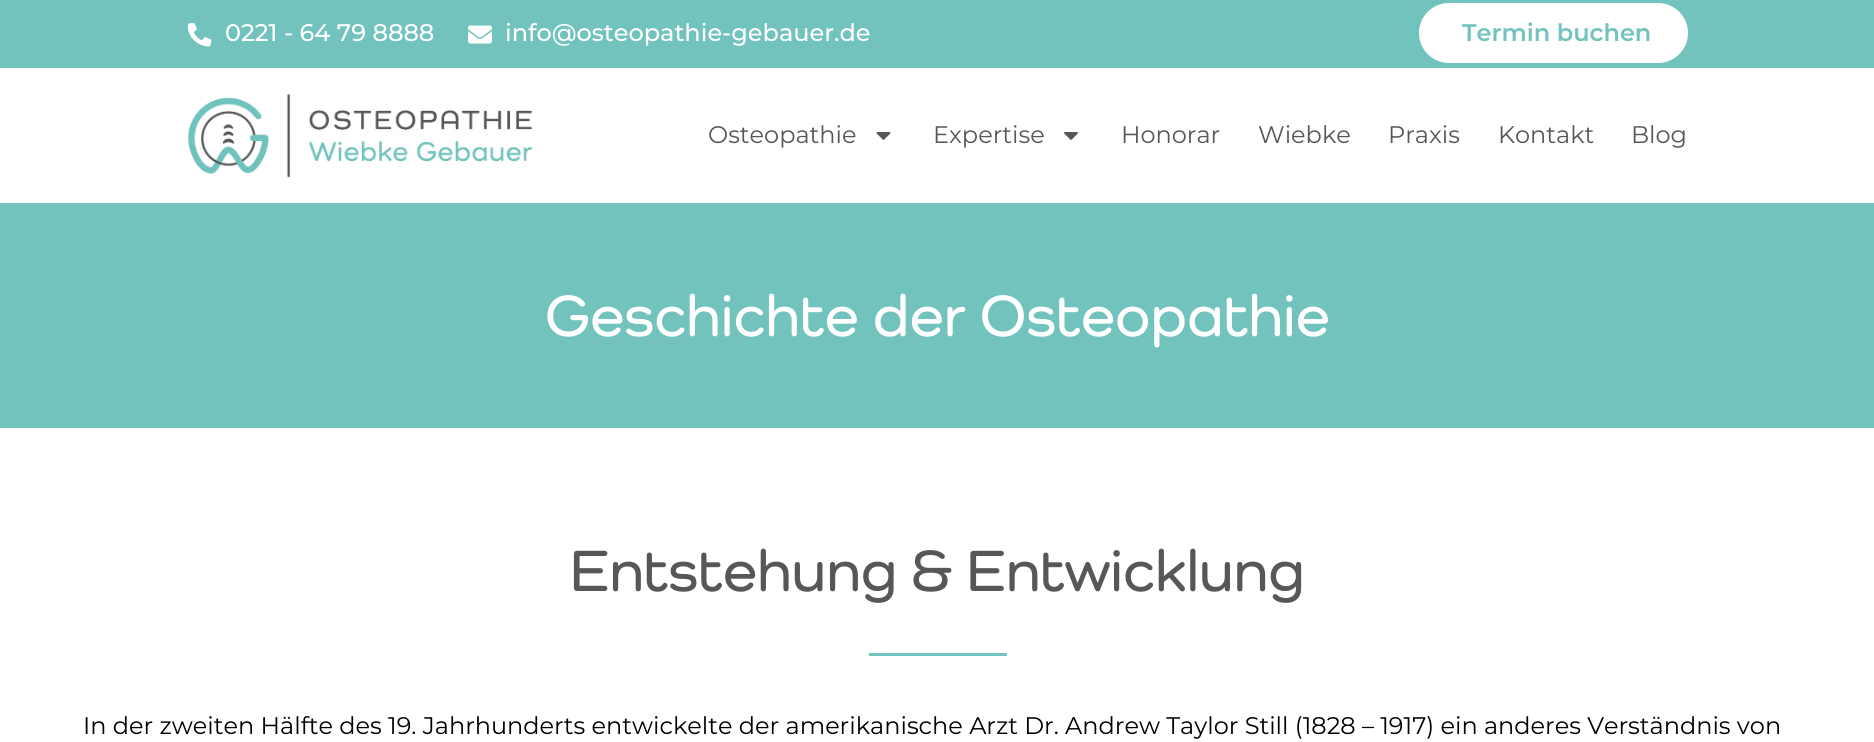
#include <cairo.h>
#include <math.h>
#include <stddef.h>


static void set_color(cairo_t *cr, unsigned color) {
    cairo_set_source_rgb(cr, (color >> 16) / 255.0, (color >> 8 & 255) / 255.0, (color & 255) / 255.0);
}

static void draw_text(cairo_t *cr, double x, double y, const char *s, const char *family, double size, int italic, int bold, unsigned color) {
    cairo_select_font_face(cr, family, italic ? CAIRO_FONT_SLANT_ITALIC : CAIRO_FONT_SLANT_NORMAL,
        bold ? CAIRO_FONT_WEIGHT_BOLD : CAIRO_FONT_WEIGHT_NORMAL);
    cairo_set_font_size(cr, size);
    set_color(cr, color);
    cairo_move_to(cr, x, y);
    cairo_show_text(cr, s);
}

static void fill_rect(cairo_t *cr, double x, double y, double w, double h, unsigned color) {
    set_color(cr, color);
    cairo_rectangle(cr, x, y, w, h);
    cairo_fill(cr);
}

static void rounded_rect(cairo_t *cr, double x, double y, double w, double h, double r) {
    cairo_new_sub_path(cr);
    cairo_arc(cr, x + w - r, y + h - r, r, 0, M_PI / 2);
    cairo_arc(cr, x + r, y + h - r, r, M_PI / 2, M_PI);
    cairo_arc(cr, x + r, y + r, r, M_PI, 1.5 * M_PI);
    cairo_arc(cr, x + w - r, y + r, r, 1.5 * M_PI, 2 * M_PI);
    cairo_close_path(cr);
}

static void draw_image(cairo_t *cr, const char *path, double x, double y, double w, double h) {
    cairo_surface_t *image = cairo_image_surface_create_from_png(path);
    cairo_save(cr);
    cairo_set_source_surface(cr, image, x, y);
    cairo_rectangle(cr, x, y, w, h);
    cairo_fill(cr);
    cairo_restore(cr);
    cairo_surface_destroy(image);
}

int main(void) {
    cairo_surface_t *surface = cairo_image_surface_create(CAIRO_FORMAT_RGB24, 1874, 742);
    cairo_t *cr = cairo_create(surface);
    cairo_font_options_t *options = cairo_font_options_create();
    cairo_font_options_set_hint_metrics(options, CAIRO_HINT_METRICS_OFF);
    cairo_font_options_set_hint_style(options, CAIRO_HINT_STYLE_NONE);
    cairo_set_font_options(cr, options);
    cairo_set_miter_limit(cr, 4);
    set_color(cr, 0xFFFFFF);
    cairo_paint(cr);
    fill_rect(cr, 0, 0, 1874, 68, 0x72C3BD);
    draw_image(cr, "assets/img1.png", 188, 23, 24, 24);
    draw_text(cr, 225, 41, "0221 - 64 79 8888", "Montserrat Medium", 24, 0, 0, 0xFFFFFF);
    draw_image(cr, "assets/img2.png", 468, 25, 24, 19);
    draw_text(cr, 505, 41, "info@osteopathie-gebauer.de", "Montserrat Medium", 24, 0, 0, 0xFFFFFF);
    rounded_rect(cr, 1419, 3, 269, 60, 30);
    cairo_fill(cr);
    draw_text(cr, 1462, 41, "Termin buchen", "Montserrat SemiBold", 24, 0, 0, 0x72C3BD);
    draw_image(cr, "assets/img3.png", 188, 93, 345, 85);
    draw_text(cr, 708, 143, "Osteopathie", "Montserrat", 24, 0, 0, 0x575756);
    draw_image(cr, "assets/img4.png", 876, 132, 15, 8);
    draw_text(cr, 933, 143, "Expertise", "Montserrat", 24, 0, 0, 0x575756);
    draw_image(cr, "assets/img5.png", 1064, 132, 14, 8);
    draw_text(cr, 1121, 143, "Honorar", "Montserrat", 24, 0, 0, 0x575756);
    draw_text(cr, 1258, 143, "Wiebke", "Montserrat", 24, 0, 0, 0x575756);
    draw_text(cr, 1388, 143, "Praxis", "Montserrat", 24, 0, 0, 0x575756);
    draw_text(cr, 1498, 143, "Kontakt", "Montserrat", 24, 0, 0, 0x575756);
    draw_text(cr, 1631, 143, "Blog", "Montserrat", 24, 0, 0, 0x575756);
    fill_rect(cr, 0, 203, 1874, 225, 0x72C3BD);
    draw_text(cr, 545, 336, "Geschichte der Osteopathie", "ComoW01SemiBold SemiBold", 60, 0, 0, 0xFFFFFF);
    draw_text(cr, 570, 591, "Entstehung & Entwicklung", "ComoW01SemiBold SemiBold", 60, 0, 0, 0x575756);
    fill_rect(cr, 869, 653, 138, 3, 0x72C3BD);
    draw_text(cr, 83, 734, "In der zweiten Hälfte des 19. Jahrhunderts entwickelte der amerikanische Arzt Dr. Andrew Taylor Still (1828 – 1917) ein anderes Verständnis von", "Montserrat", 24, 0, 0, 0x000000);
    cairo_surface_write_to_png(surface, "output.png");
    cairo_font_options_destroy(options);
    cairo_destroy(cr);
    cairo_surface_destroy(surface);
    return 0;
}
